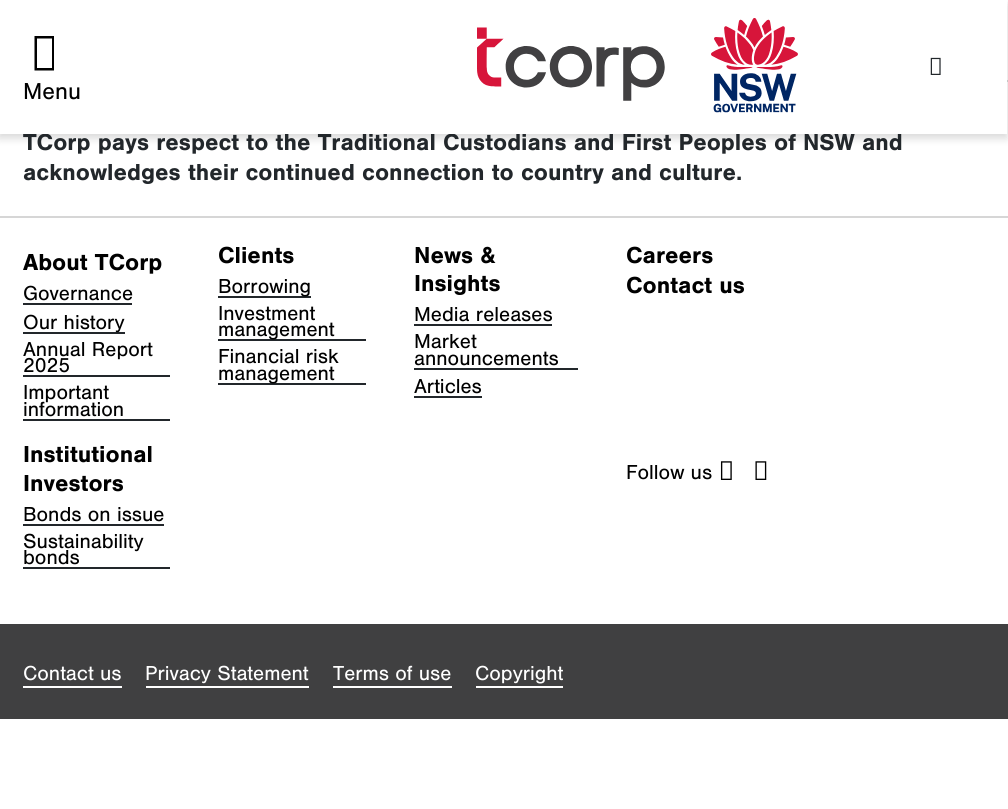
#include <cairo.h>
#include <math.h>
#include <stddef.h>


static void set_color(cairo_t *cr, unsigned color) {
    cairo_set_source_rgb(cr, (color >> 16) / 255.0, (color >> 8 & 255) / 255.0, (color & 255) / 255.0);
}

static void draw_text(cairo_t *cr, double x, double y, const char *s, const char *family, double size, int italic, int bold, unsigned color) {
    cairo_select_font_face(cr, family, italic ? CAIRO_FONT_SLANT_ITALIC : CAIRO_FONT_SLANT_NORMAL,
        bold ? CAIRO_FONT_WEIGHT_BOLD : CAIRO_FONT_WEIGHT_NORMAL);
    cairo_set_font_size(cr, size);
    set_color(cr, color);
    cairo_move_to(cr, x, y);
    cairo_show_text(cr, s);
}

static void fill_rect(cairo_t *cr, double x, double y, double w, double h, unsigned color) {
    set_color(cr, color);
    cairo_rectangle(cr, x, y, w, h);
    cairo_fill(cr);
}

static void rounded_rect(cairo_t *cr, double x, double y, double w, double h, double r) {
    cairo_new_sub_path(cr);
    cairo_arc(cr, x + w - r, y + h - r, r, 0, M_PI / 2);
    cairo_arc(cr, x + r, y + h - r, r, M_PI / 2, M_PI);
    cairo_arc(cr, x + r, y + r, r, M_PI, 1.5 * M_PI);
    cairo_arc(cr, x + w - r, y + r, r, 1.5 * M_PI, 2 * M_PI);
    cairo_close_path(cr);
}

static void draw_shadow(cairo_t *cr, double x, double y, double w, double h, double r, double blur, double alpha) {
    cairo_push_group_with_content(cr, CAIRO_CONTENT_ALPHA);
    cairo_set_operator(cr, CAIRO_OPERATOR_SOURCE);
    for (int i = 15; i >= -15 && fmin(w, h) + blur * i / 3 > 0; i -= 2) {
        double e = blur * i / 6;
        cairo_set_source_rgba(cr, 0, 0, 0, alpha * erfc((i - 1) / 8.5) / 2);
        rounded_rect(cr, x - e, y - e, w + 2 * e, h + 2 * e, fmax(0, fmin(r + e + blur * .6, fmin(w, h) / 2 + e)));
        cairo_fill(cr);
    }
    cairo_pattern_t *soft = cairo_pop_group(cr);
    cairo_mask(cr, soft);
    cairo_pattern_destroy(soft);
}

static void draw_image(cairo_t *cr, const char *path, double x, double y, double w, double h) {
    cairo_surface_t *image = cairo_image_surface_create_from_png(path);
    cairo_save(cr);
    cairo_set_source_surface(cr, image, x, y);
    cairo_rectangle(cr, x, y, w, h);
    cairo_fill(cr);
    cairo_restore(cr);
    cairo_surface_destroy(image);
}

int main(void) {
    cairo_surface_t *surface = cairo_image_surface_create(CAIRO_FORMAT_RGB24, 1008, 809);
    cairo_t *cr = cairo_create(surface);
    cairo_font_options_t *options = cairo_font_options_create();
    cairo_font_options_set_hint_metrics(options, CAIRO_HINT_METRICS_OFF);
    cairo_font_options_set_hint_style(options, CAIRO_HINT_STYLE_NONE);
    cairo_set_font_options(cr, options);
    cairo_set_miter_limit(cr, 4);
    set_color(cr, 0xFFFFFF);
    cairo_paint(cr);
    fill_rect(cr, 1007, 80, 1, 2, 0xD6D6D6);
    set_color(cr, 0x000000);
    draw_shadow(cr, -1, 5, 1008, 133, 0, 4.5, 0.16);
    draw_text(cr, 23, 150, "TCorp pays respect to the Traditional Custodians and First Peoples of NSW and", "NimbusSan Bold", 24, 0, 1, 0x22272B);
    fill_rect(cr, 0, 0, 1007, 134, 0xFFFFFF);
    draw_image(cr, "assets/img1.png", 477, 18, 321, 95);
    draw_image(cr, "assets/img2.png", 930, 57, 11, 18);
    set_color(cr, 0x000000);
    cairo_new_path(cr);
    cairo_move_to(cr, 34.5, 70.5);
    cairo_line_to(cr, 34.5, 36);
    cairo_line_to(cr, 54, 36);
    cairo_line_to(cr, 54, 70.5);
    cairo_close_path(cr);
    cairo_move_to(cr, 37, 68);
    cairo_line_to(cr, 52, 68);
    cairo_line_to(cr, 52, 38.5);
    cairo_line_to(cr, 37, 38.5);
    cairo_close_path(cr);
    cairo_fill(cr);
    draw_text(cr, 23, 99, "Menu", "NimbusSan", 24, 0, 0, 0x000000);
    draw_text(cr, 23, 180, "acknowledges their continued connection to country and culture.", "NimbusSan Bold", 24, 0, 1, 0x22272B);
    set_color(cr, 0xD6D6D6);
    cairo_new_path(cr);
    cairo_move_to(cr, -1, 216);
    cairo_line_to(cr, -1, 218);
    cairo_line_to(cr, 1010, 218);
    cairo_line_to(cr, 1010, 717);
    cairo_line_to(cr, 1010, 216);
    cairo_close_path(cr);
    cairo_fill(cr);
    draw_text(cr, 23, 270, "About TCorp", "NimbusSan Bold", 24, 0, 1, 0x000000);
    fill_rect(cr, 23, 303, 109, 2, 0x22272B);
    draw_text(cr, 23, 300, "Governance", "NimbusSan", 21, 0, 0, 0x000000);
    fill_rect(cr, 23, 332, 102, 2, 0x22272B);
    draw_text(cr, 23, 329, "Our history", "NimbusSan", 21, 0, 0, 0x000000);
    fill_rect(cr, 23, 375, 147, 2, 0x22272B);
    draw_text(cr, 23, 356, "Annual Report", "NimbusSan", 21, 0, 0, 0x000000);
    draw_text(cr, 23, 372, "2025", "NimbusSan", 21, 0, 0, 0x000000);
    fill_rect(cr, 23, 419, 147, 2, 0x22272B);
    draw_text(cr, 23, 399, "Important", "NimbusSan", 21, 0, 0, 0x000000);
    draw_text(cr, 23, 416, "information", "NimbusSan", 21, 0, 0, 0x000000);
    draw_text(cr, 218, 263, "Clients", "NimbusSan Bold", 24, 0, 1, 0x000000);
    fill_rect(cr, 218, 296, 93, 2, 0x22272B);
    draw_text(cr, 218, 293, "Borrowing", "NimbusSan", 21, 0, 0, 0x000000);
    fill_rect(cr, 218, 339, 148, 2, 0x22272B);
    draw_text(cr, 218, 320, "Investment", "NimbusSan", 21, 0, 0, 0x000000);
    draw_text(cr, 218, 336, "management", "NimbusSan", 21, 0, 0, 0x000000);
    fill_rect(cr, 218, 383, 148, 2, 0x22272B);
    draw_text(cr, 218, 363, "Financial risk", "NimbusSan", 21, 0, 0, 0x000000);
    draw_text(cr, 218, 380, "management", "NimbusSan", 21, 0, 0, 0x000000);
    draw_text(cr, 414, 263, "News &", "NimbusSan Bold", 24, 0, 1, 0x000000);
    draw_text(cr, 414, 291, "Insights", "NimbusSan Bold", 24, 0, 1, 0x000000);
    fill_rect(cr, 414, 324, 138, 2, 0x22272B);
    draw_text(cr, 414, 321, "Media releases", "NimbusSan", 21, 0, 0, 0x000000);
    fill_rect(cr, 414, 368, 164, 2, 0x22272B);
    draw_text(cr, 414, 348, "Market", "NimbusSan", 21, 0, 0, 0x000000);
    draw_text(cr, 414, 365, "announcements", "NimbusSan", 21, 0, 0, 0x000000);
    fill_rect(cr, 414, 396, 68, 2, 0x22272B);
    draw_text(cr, 414, 393, "Articles", "NimbusSan", 21, 0, 0, 0x000000);
    draw_text(cr, 626, 263, "Careers", "NimbusSan Bold", 24, 0, 1, 0x000000);
    draw_text(cr, 626, 293, "Contact us", "NimbusSan Bold", 24, 0, 1, 0x000000);
    draw_text(cr, 23, 462, "Institutional", "NimbusSan Bold", 24, 0, 1, 0x000000);
    draw_text(cr, 23, 491, "Investors", "NimbusSan Bold", 24, 0, 1, 0x000000);
    fill_rect(cr, 23, 524, 141, 2, 0x22272B);
    draw_text(cr, 23, 521, "Bonds on issue", "NimbusSan", 21, 0, 0, 0x000000);
    fill_rect(cr, 23, 567, 147, 2, 0x22272B);
    draw_text(cr, 23, 548, "Sustainability", "NimbusSan", 21, 0, 0, 0x000000);
    draw_text(cr, 23, 564, "bonds", "NimbusSan", 21, 0, 0, 0x000000);
    draw_text(cr, 626, 479, "Follow us", "NimbusSan", 21, 0, 0, 0x000000);
    draw_image(cr, "assets/img3.png", 720, 461, 12, 19);
    draw_image(cr, "assets/img4.png", 755, 461, 12, 19);
    fill_rect(cr, 0, 624, 1008, 95, 0x404041);
    draw_text(cr, 23, 680, "Contact us", "NimbusSan", 21, 0, 0, 0xFFFFFF);
    fill_rect(cr, 23, 686, 99, 2, 0xFFFFFF);
    draw_text(cr, 145, 680, "Privacy Statement", "NimbusSan", 21, 0, 0, 0xFFFFFF);
    fill_rect(cr, 146, 686, 163, 2, 0xFFFFFF);
    draw_text(cr, 333, 680, "Terms of use", "NimbusSan", 21, 0, 0, 0xFFFFFF);
    fill_rect(cr, 333, 686, 119, 2, 0xFFFFFF);
    draw_text(cr, 475, 680, "Copyright", "NimbusSan", 21, 0, 0, 0xFFFFFF);
    fill_rect(cr, 476, 686, 87, 2, 0xFFFFFF);
    cairo_surface_write_to_png(surface, "output.png");
    cairo_font_options_destroy(options);
    cairo_destroy(cr);
    cairo_surface_destroy(surface);
    return 0;
}
